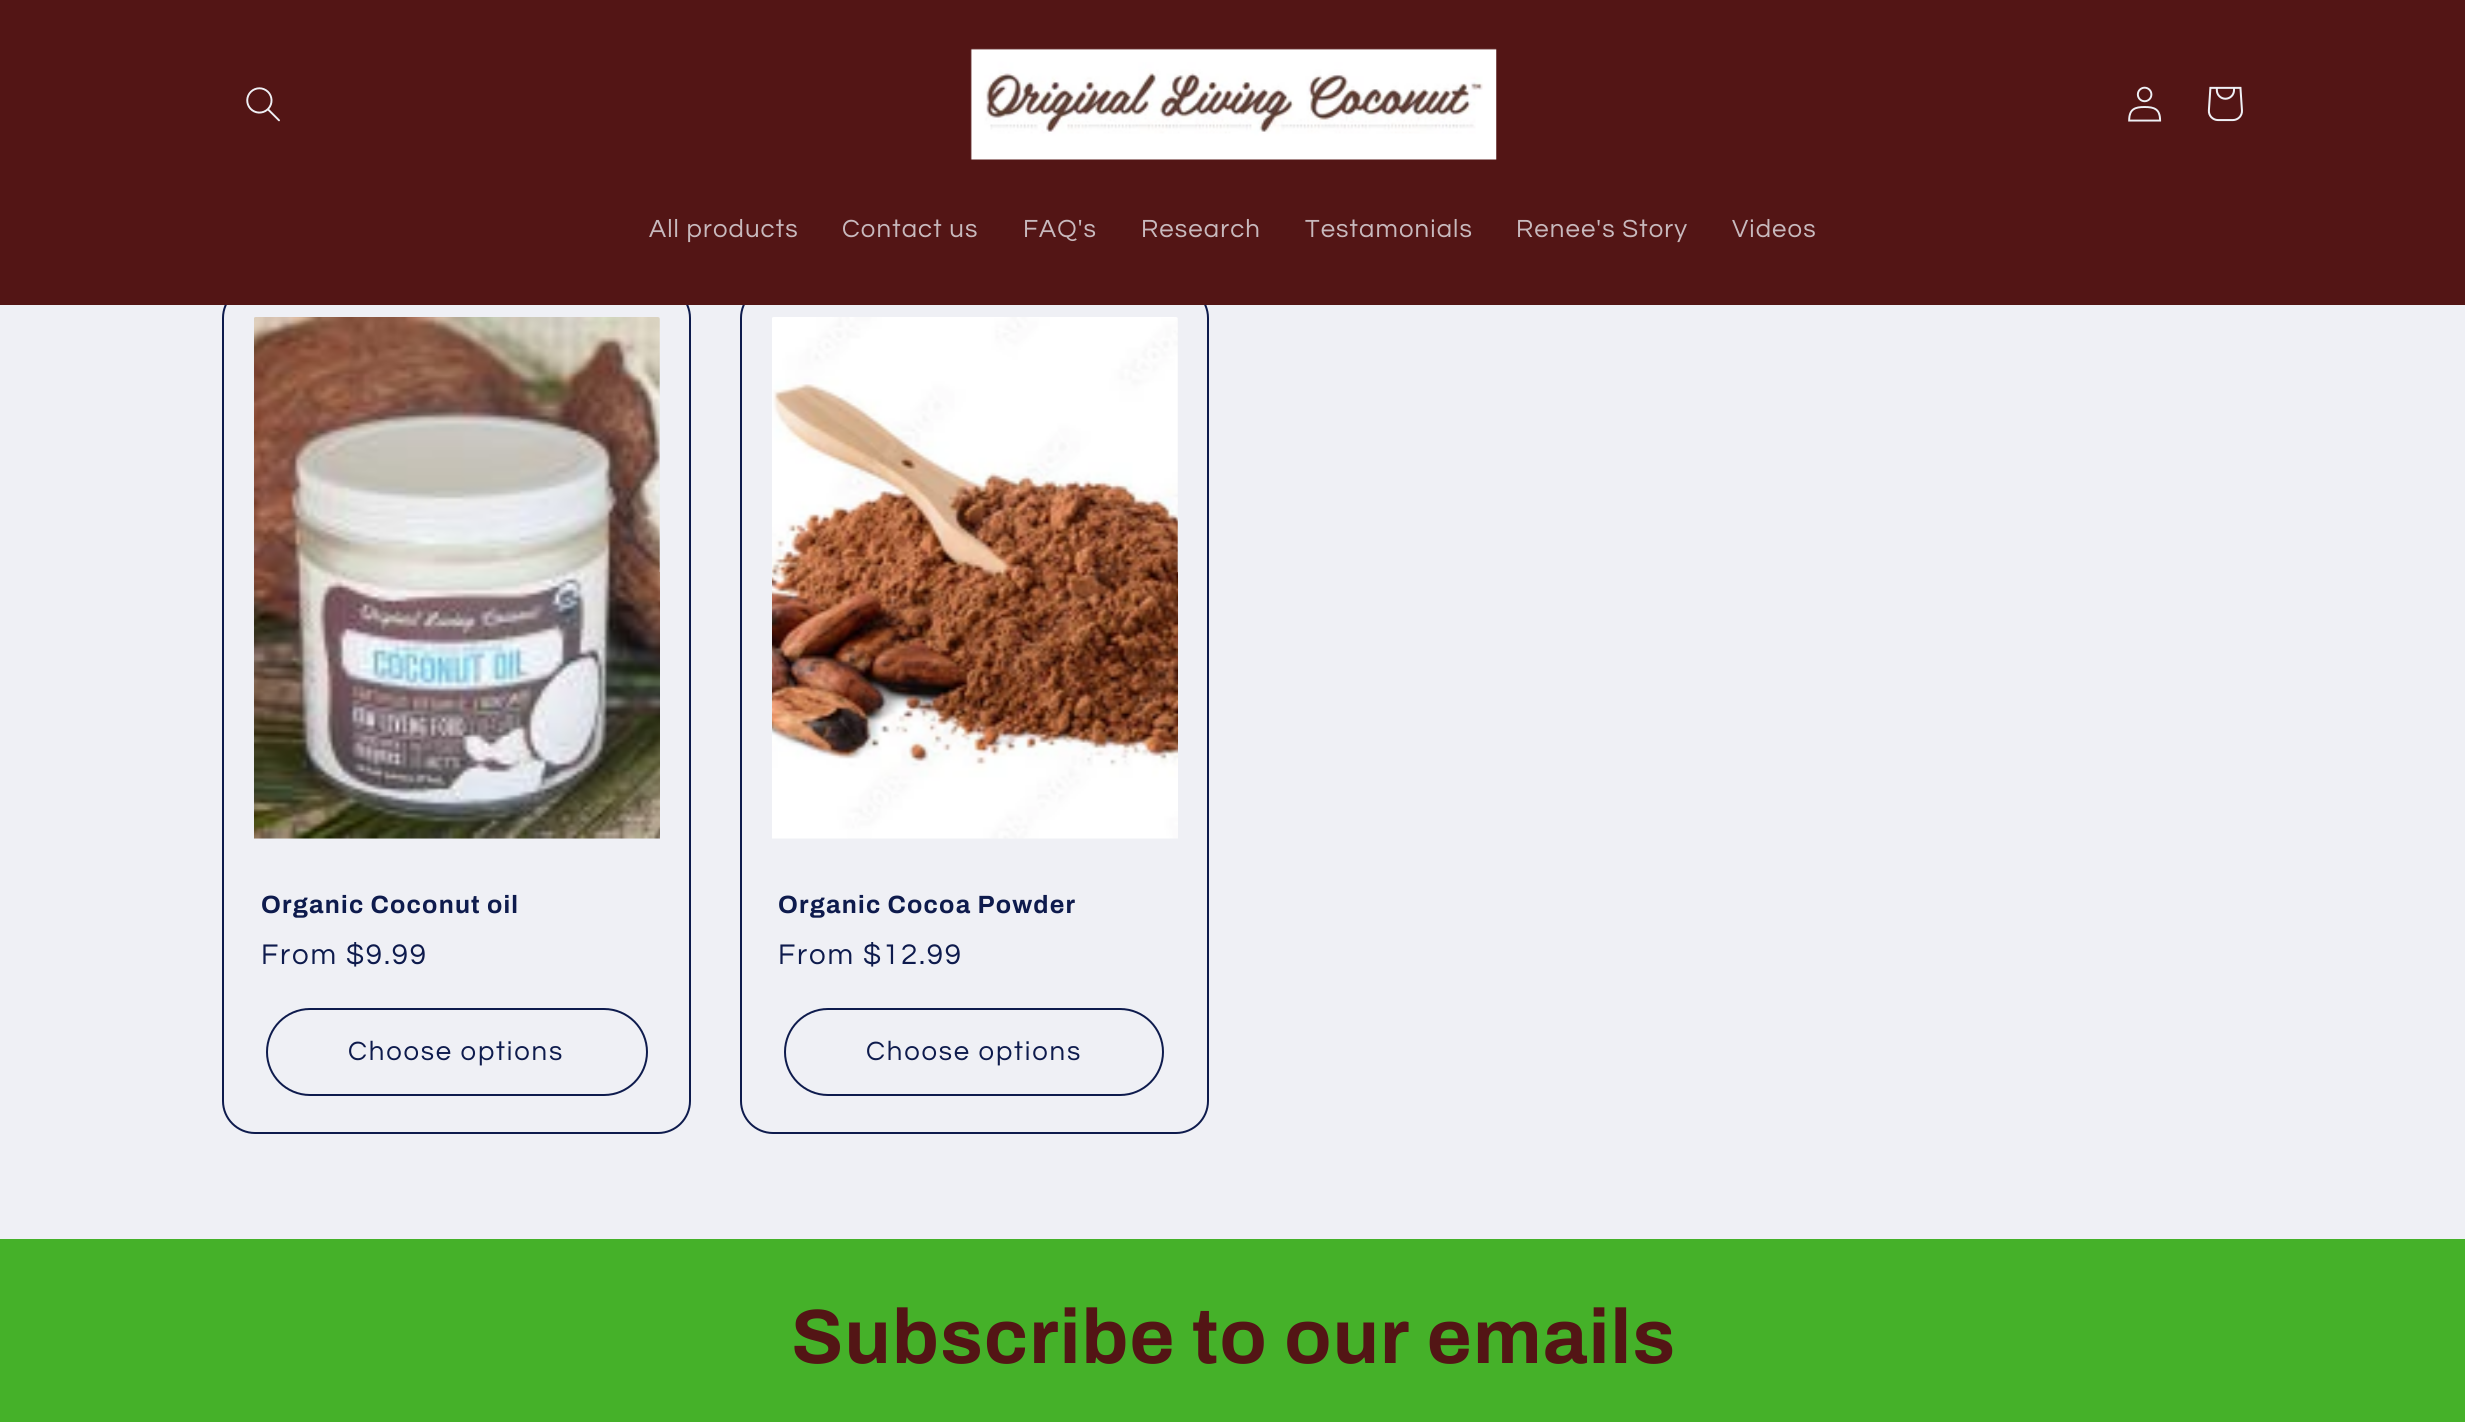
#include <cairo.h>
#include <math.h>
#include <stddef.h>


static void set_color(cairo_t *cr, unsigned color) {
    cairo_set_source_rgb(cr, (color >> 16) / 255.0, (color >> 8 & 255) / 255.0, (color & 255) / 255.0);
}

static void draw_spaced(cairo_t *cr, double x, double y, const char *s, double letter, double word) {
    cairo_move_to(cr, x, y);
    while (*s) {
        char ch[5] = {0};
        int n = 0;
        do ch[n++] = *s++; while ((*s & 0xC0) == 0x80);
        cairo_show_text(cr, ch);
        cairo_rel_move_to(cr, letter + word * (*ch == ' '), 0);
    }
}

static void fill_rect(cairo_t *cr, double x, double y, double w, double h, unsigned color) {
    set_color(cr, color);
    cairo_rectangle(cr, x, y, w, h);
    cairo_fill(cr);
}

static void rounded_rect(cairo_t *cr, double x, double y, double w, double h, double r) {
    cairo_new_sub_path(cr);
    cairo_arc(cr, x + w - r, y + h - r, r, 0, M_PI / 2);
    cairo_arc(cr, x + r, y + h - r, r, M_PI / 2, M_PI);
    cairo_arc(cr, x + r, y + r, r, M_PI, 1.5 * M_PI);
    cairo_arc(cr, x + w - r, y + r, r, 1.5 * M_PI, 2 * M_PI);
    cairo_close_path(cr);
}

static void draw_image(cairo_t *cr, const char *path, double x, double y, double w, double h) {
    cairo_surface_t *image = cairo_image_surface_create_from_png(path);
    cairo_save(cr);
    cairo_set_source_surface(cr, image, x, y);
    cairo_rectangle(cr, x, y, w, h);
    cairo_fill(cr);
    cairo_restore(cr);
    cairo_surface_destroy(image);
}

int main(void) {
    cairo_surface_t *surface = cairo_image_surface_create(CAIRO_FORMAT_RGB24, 2465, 1422);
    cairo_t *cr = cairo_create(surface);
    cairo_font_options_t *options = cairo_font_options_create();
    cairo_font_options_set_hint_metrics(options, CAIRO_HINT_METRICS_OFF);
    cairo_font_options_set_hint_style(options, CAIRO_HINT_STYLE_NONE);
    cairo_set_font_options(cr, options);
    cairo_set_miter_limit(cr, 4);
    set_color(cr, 0xEFF0F5);
    cairo_paint(cr);
    rounded_rect(cr, 223, 286, 467, 847, 32);
    set_color(cr, 0x0E1B4D);
    cairo_stroke(cr);
    rounded_rect(cr, 741, 286, 467, 847, 32);
    cairo_stroke(cr);
    fill_rect(cr, 0, 0, 2465, 305, 0x531515);
    draw_image(cr, "assets/img1.png", 246, 87, 34, 35);
    draw_image(cr, "assets/img2.png", 970, 48, 527, 112);
    draw_image(cr, "assets/img3.png", 2128, 86, 34, 36);
    draw_image(cr, "assets/img4.png", 2207, 86, 36, 36);
    cairo_select_font_face(cr, "Questrial", CAIRO_FONT_SLANT_NORMAL, CAIRO_FONT_WEIGHT_NORMAL);
    cairo_set_font_size(cr, 25.75);
    set_color(cr, 0xC8B9BD);
    draw_spaced(cr, 649, 237, "All products", 1.1, 0);
    draw_spaced(cr, 842, 237, "Contact us", 1.1, 0);
    draw_spaced(cr, 1023, 237, "FAQ's", 1.1, 0);
    draw_spaced(cr, 1141, 237, "Research", 1.1, 0);
    draw_spaced(cr, 1305, 237, "Testamonials", 1.1, 0);
    draw_spaced(cr, 1516, 237, "Renee's Story", 1.1, 0);
    draw_spaced(cr, 1732, 237, "Videos", 1.1, 0);
    draw_image(cr, "assets/img5.png", 254, 317, 406, 522);
    cairo_select_font_face(cr, "Archivo", CAIRO_FONT_SLANT_NORMAL, CAIRO_FONT_WEIGHT_BOLD);
    cairo_set_font_size(cr, 25);
    set_color(cr, 0x0E1B4D);
    draw_spaced(cr, 261, 913, "Organic Coconut oil", 1.2, 0);
    cairo_select_font_face(cr, "Questrial", CAIRO_FONT_SLANT_NORMAL, CAIRO_FONT_WEIGHT_NORMAL);
    cairo_set_font_size(cr, 29.5);
    draw_spaced(cr, 261, 964, "From $9.99", 1.8, 0);
    rounded_rect(cr, 267, 1009, 380, 86, 43);
    cairo_stroke(cr);
    cairo_set_font_size(cr, 27.5);
    draw_spaced(cr, 348, 1060, "Choose options", 1.8, 0);
    draw_image(cr, "assets/img6.png", 772, 317, 406, 522);
    cairo_select_font_face(cr, "Archivo", CAIRO_FONT_SLANT_NORMAL, CAIRO_FONT_WEIGHT_BOLD);
    cairo_set_font_size(cr, 25);
    draw_spaced(cr, 778, 913, "Organic Cocoa Powder", 1.2, 0);
    cairo_select_font_face(cr, "Questrial", CAIRO_FONT_SLANT_NORMAL, CAIRO_FONT_WEIGHT_NORMAL);
    cairo_set_font_size(cr, 29.5);
    draw_spaced(cr, 778, 964, "From $12.99", 1.8, 0);
    rounded_rect(cr, 785, 1009, 378, 86, 43);
    cairo_stroke(cr);
    cairo_set_font_size(cr, 27.5);
    draw_spaced(cr, 866, 1060, "Choose options", 1.8, 0);
    fill_rect(cr, 0, 1239, 2465, 183, 0x45B129);
    cairo_select_font_face(cr, "Archivo", CAIRO_FONT_SLANT_NORMAL, CAIRO_FONT_WEIGHT_BOLD);
    cairo_set_font_size(cr, 77);
    set_color(cr, 0x531515);
    draw_spaced(cr, 791, 1363, "Subscribe to our emails", 1.2, 0);
    cairo_surface_write_to_png(surface, "output.png");
    cairo_font_options_destroy(options);
    cairo_destroy(cr);
    cairo_surface_destroy(surface);
    return 0;
}
